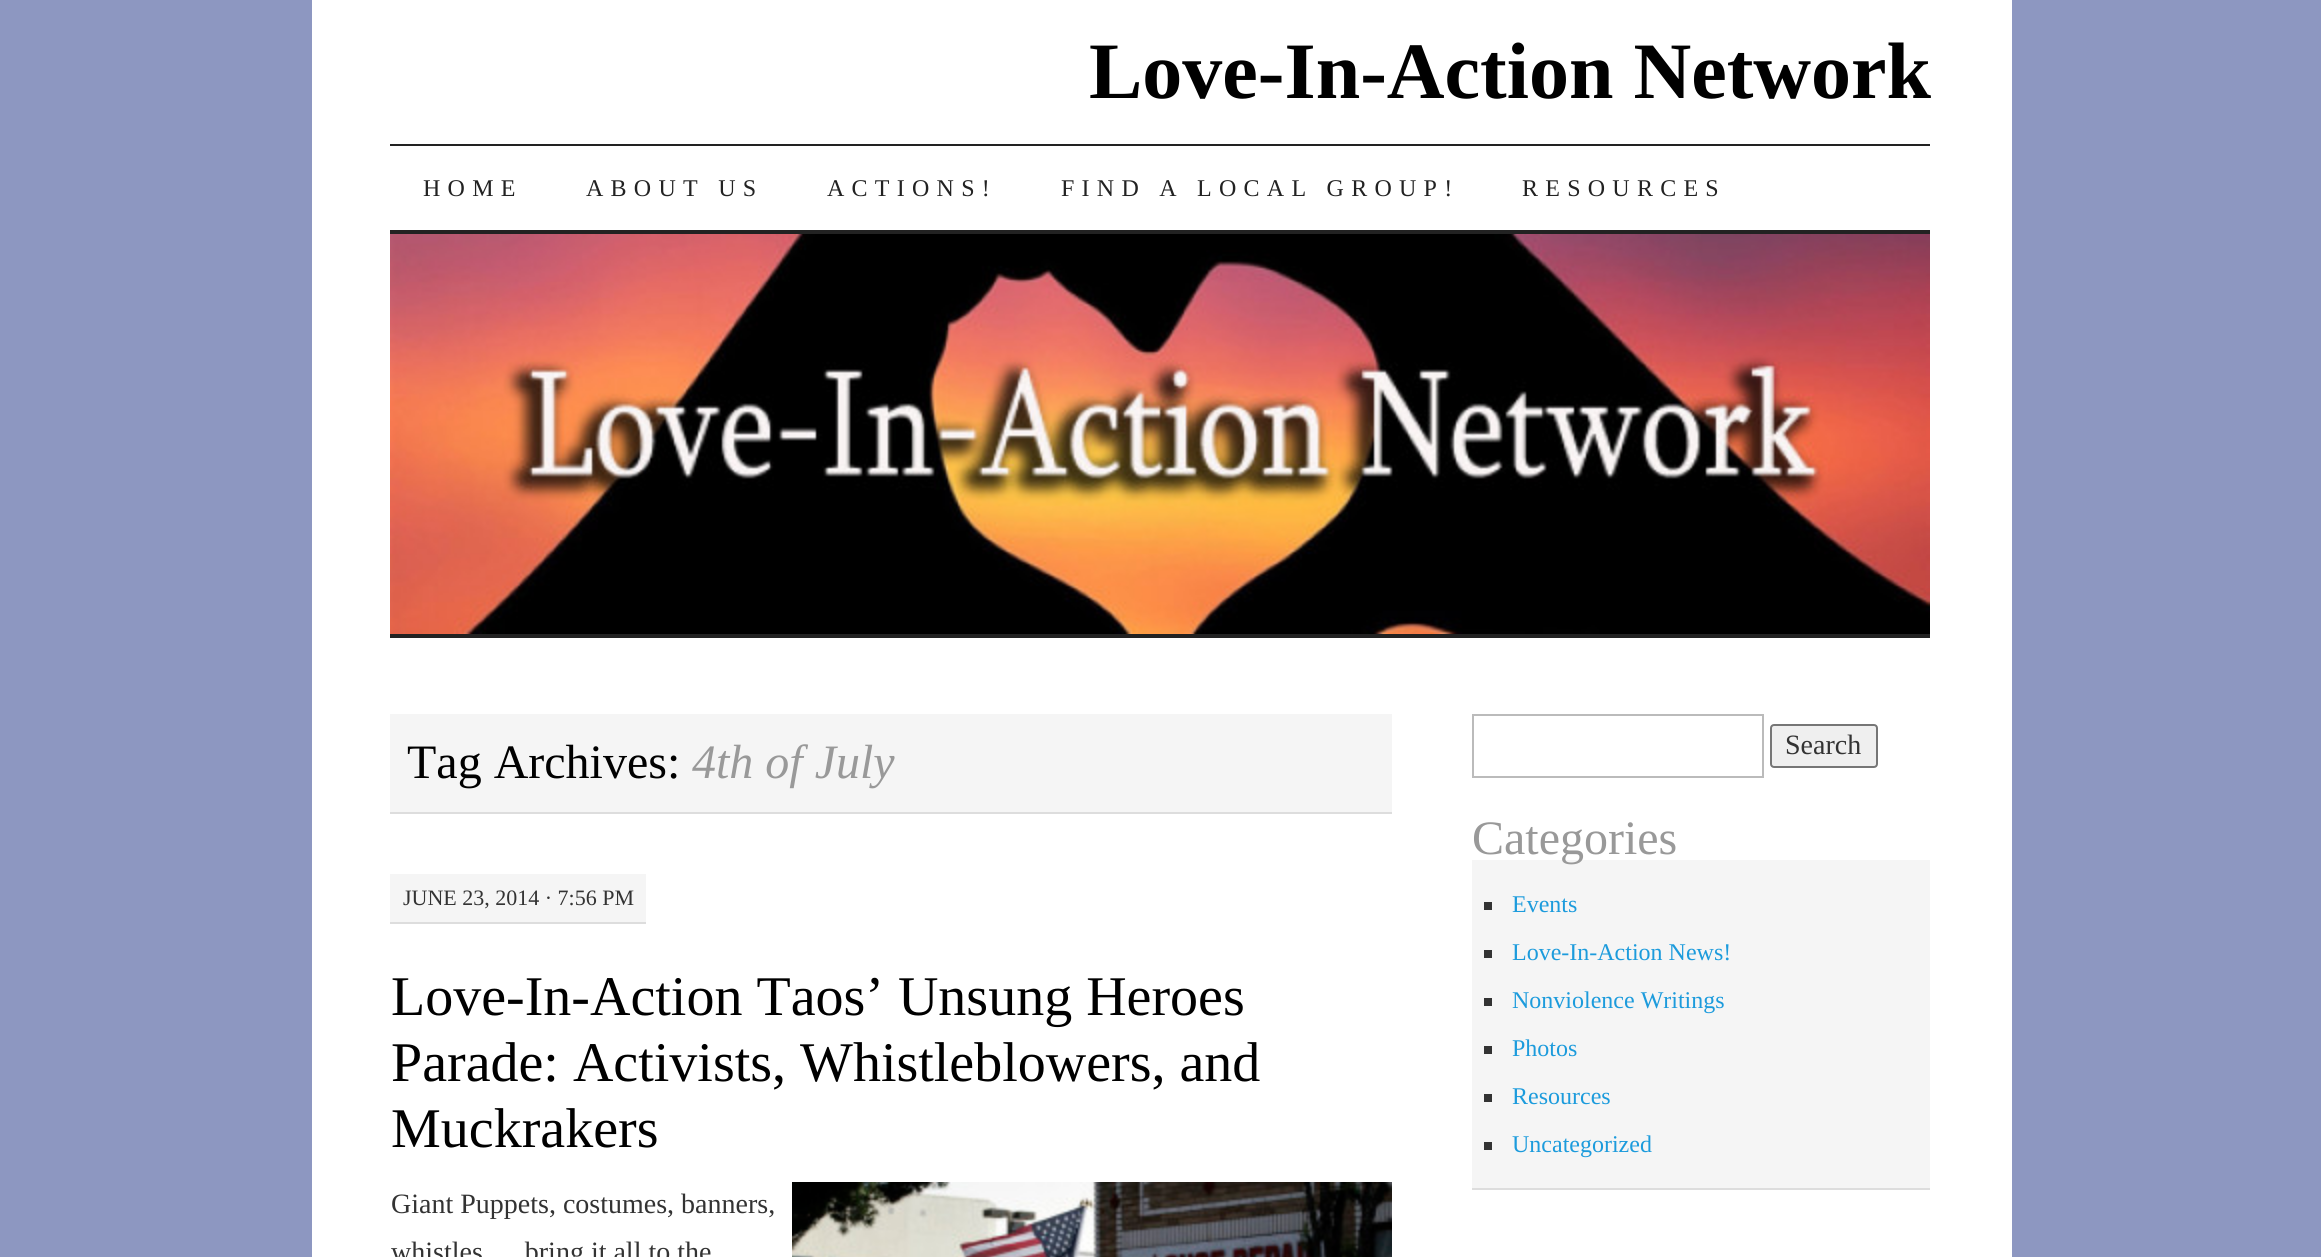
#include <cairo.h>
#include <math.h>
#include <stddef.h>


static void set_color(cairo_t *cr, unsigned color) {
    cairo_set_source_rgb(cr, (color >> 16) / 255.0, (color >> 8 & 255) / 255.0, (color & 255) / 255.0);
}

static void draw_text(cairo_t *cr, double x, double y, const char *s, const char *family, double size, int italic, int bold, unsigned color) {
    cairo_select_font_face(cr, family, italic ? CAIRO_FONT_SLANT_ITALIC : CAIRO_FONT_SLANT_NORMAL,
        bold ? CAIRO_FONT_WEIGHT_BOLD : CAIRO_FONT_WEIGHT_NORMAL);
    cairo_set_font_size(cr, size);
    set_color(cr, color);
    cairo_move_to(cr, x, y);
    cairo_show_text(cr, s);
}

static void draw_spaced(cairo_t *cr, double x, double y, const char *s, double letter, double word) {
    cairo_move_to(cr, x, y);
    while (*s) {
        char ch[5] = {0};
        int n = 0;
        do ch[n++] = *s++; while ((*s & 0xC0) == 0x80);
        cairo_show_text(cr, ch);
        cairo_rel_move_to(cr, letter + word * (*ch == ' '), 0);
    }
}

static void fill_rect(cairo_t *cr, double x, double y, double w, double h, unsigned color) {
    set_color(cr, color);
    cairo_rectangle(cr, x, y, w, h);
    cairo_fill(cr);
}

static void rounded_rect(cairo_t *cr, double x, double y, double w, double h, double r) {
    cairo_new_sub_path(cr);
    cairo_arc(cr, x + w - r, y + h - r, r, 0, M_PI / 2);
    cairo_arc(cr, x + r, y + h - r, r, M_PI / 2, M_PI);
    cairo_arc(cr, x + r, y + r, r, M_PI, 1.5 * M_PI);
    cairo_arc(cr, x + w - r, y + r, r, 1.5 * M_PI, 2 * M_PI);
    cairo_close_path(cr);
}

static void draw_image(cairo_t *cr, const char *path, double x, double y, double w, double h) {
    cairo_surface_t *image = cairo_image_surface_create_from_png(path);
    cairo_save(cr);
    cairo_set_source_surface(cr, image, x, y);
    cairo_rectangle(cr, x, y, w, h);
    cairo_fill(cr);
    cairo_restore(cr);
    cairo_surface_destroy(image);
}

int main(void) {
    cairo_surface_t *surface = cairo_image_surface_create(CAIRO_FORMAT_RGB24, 2321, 1257);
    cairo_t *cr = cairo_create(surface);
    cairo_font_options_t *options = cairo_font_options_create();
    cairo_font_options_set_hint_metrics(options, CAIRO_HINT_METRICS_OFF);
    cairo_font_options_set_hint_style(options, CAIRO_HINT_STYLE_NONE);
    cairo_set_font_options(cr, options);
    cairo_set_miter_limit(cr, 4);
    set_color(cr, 0x8D97C1);
    cairo_paint(cr);
    fill_rect(cr, 312, 0, 1700, 1257, 0xFFFFFF);
    draw_text(cr, 1089, 98, "Love-In-Action Network", "Liberation Serif", 80, 0, 1, 0x000000);
    fill_rect(cr, 390, 144, 1540, 2, 0x222222);
    fill_rect(cr, 390, 230, 1540, 4, 0x222222);
    cairo_select_font_face(cr, "Liberation Serif", CAIRO_FONT_SLANT_NORMAL, CAIRO_FONT_WEIGHT_NORMAL);
    cairo_set_font_size(cr, 24);
    draw_spaced(cr, 423, 196, "HOME", 7.25, 0);
    draw_spaced(cr, 586, 196, "ABOUT US", 7.25, 0);
    draw_spaced(cr, 827, 196, "ACTIONS!", 7.25, 0);
    draw_spaced(cr, 1061, 196, "FIND A LOCAL GROUP!", 7.25, 0);
    draw_spaced(cr, 1522, 196, "RESOURCES", 7.25, 0);
    draw_image(cr, "assets/img1.png", 390, 234, 1540, 400);
    fill_rect(cr, 390, 634, 1540, 4, 0x222222);
    fill_rect(cr, 390, 714, 1002, 98, 0xF5F5F5);
    fill_rect(cr, 390, 812, 1002, 2, 0xDDDDDD);
    draw_text(cr, 407, 778, "Tag Archives:", "Liberation Serif", 48, 0, 0, 0x000000);
    draw_text(cr, 692, 778, "4th of July", "Liberation Serif", 48, 1, 0, 0x999999);
    fill_rect(cr, 390, 874, 256, 48, 0xF5F5F5);
    fill_rect(cr, 390, 922, 256, 2, 0xDDDDDD);
    draw_text(cr, 403, 905, "JUNE 23, 2014 · 7:56 PM", "Liberation Serif", 22, 0, 0, 0x333333);
    draw_text(cr, 391, 1015, "Love-In-Action Taos’ Unsung Heroes", "Liberation Serif", 56, 0, 0, 0x000000);
    draw_text(cr, 391, 1081, "Parade: Activists, Whistleblowers, and", "Liberation Serif", 56, 0, 0, 0x000000);
    draw_text(cr, 391, 1147, "Muckrakers", "Liberation Serif", 56, 0, 0, 0x000000);
    draw_text(cr, 391, 1213, "Giant Puppets, costumes, banners,", "Liberation Serif", 28, 0, 0, 0x333333);
    draw_image(cr, "assets/img2.png", 792, 1182, 600, 75);
    draw_text(cr, 391, 1261, "whistles … bring it all to the", "Liberation Serif", 28, 0, 0, 0x333333);
    cairo_rectangle(cr, 1473, 715, 290, 62);
    set_color(cr, 0xBBBBBB);
    cairo_stroke(cr);
    set_color(cr, 0xEFEFEF);
    rounded_rect(cr, 1771, 725, 106, 42, 3);
    cairo_fill_preserve(cr);
    set_color(cr, 0x767676);
    cairo_stroke(cr);
    draw_text(cr, 1785, 754, "Search", "Liberation Serif", 28, 0, 0, 0x333333);
    fill_rect(cr, 1472, 860, 458, 328, 0xF5F5F5);
    draw_text(cr, 1472, 854, "Categories", "Liberation Serif", 48, 0, 0, 0x999999);
    fill_rect(cr, 1472, 1188, 458, 2, 0xDDDDDD);
    fill_rect(cr, 1484, 902, 8, 8, 0x333333);
    draw_text(cr, 1512, 912, "Events", "Liberation Serif", 24, 0, 0, 0x1C9BDC);
    fill_rect(cr, 1484, 950, 8, 8, 0x333333);
    draw_text(cr, 1512, 960, "Love-In-Action News!", "Liberation Serif", 24, 0, 0, 0x1C9BDC);
    fill_rect(cr, 1484, 998, 8, 8, 0x333333);
    draw_text(cr, 1512, 1008, "Nonviolence Writings", "Liberation Serif", 24, 0, 0, 0x1C9BDC);
    fill_rect(cr, 1484, 1046, 8, 8, 0x333333);
    draw_text(cr, 1512, 1056, "Photos", "Liberation Serif", 24, 0, 0, 0x1C9BDC);
    fill_rect(cr, 1484, 1094, 8, 8, 0x333333);
    draw_text(cr, 1512, 1104, "Resources", "Liberation Serif", 24, 0, 0, 0x1C9BDC);
    fill_rect(cr, 1484, 1142, 8, 8, 0x333333);
    draw_text(cr, 1512, 1152, "Uncategorized", "Liberation Serif", 24, 0, 0, 0x1C9BDC);
    cairo_surface_write_to_png(surface, "output.png");
    cairo_font_options_destroy(options);
    cairo_destroy(cr);
    cairo_surface_destroy(surface);
    return 0;
}
